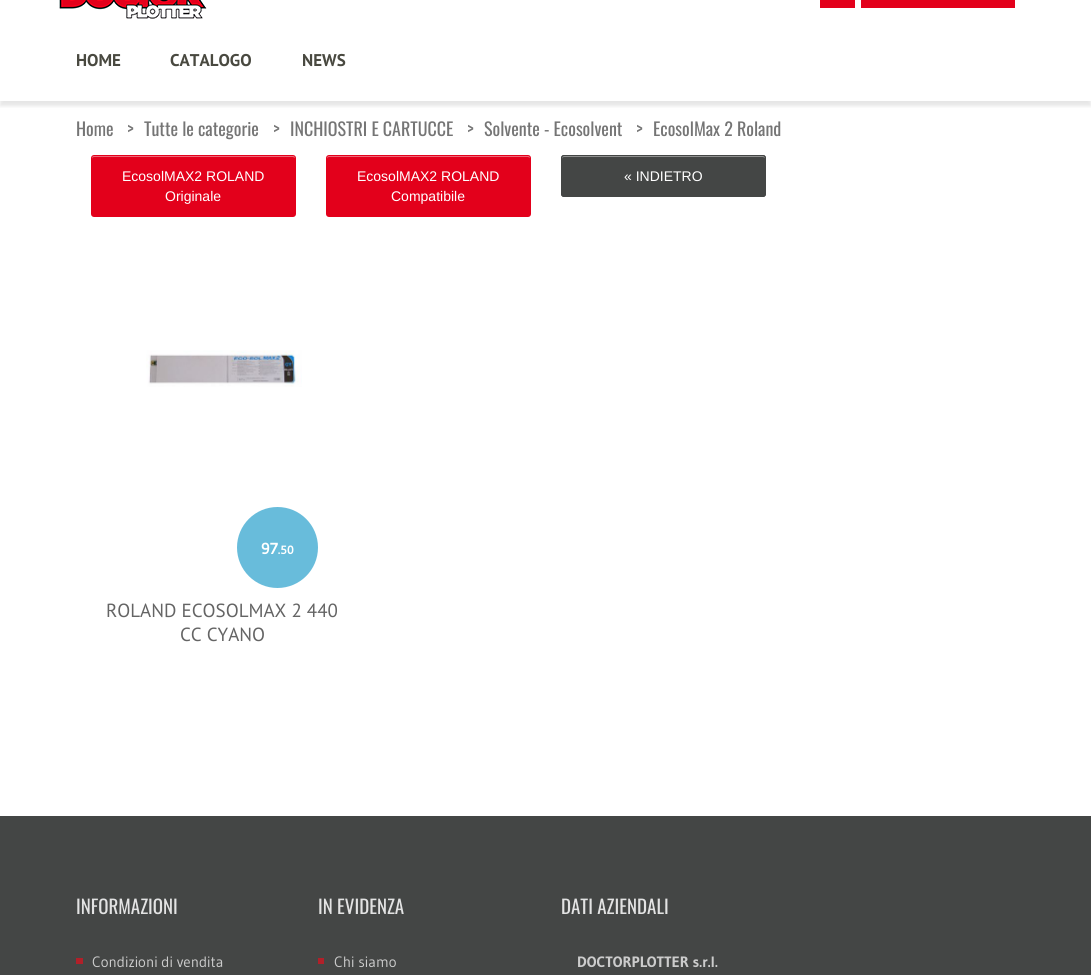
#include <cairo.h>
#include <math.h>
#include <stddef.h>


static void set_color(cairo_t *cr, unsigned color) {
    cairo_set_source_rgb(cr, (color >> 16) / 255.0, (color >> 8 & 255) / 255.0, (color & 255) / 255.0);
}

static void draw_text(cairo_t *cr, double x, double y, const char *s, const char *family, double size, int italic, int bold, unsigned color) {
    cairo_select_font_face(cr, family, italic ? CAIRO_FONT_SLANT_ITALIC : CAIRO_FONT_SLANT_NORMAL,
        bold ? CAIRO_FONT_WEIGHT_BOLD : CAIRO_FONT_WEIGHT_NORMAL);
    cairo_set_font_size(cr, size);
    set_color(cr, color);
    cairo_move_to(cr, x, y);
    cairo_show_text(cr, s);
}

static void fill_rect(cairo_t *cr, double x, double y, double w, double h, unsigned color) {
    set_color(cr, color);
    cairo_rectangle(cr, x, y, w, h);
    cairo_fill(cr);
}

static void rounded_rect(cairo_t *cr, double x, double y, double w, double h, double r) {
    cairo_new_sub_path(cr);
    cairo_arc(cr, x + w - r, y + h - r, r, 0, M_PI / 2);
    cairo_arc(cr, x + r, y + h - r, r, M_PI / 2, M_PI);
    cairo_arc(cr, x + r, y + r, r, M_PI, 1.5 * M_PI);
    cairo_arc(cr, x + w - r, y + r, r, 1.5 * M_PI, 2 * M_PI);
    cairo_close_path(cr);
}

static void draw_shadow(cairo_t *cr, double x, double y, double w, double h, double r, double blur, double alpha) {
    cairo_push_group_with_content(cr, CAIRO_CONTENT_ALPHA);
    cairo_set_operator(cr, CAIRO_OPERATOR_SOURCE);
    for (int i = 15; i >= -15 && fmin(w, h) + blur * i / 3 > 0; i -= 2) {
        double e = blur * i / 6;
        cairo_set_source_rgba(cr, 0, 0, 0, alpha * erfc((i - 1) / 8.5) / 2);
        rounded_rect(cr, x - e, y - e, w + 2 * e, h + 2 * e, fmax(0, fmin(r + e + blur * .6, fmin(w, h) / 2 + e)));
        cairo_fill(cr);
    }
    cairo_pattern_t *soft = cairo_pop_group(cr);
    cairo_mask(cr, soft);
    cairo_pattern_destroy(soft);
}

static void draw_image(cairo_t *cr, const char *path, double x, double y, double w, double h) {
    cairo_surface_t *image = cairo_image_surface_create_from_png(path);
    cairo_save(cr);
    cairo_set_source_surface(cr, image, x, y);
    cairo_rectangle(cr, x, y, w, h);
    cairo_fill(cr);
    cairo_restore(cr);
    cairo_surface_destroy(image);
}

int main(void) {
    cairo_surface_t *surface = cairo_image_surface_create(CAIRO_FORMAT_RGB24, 1091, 975);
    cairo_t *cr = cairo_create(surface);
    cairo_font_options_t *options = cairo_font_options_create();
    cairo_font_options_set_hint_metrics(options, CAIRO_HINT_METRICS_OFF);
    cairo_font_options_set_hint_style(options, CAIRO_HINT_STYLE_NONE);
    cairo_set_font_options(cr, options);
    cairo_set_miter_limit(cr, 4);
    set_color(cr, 0xFFFFFF);
    cairo_paint(cr);
    draw_image(cr, "assets/img1.png", 59, 0, 148, 19);
    fill_rect(cr, 820, 0, 35, 8, 0xE3001B);
    fill_rect(cr, 861, 0, 154, 8, 0xE3001B);
    cairo_save(cr);
    cairo_rectangle(cr, 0, 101, 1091, 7);
    cairo_clip(cr);
    set_color(cr, 0x000000);
    draw_shadow(cr, 0, 37, 1091, 69, 0, 2, 0.1);
    cairo_restore(cr);
    draw_text(cr, 76, 66, "HOME", "PT Sans", 17, 0, 1, 0x494940);
    draw_text(cr, 170, 66, "CATALOGO", "PT Sans", 17, 0, 1, 0x494940);
    draw_text(cr, 302, 66, "NEWS", "PT Sans", 17, 0, 1, 0x494940);
    draw_text(cr, 76, 136, "Home", "Oswald", 18, 0, 0, 0x757575);
    draw_text(cr, 127, 136, ">", "Oswald", 18, 0, 0, 0x757575);
    draw_text(cr, 144, 136, "Tutte le categorie", "Oswald", 18, 0, 0, 0x757575);
    draw_text(cr, 273, 136, ">", "Oswald", 18, 0, 0, 0x757575);
    draw_text(cr, 290, 136, "INCHIOSTRI E CARTUCCE", "Oswald", 18, 0, 0, 0x757575);
    draw_text(cr, 467, 136, ">", "Oswald", 18, 0, 0, 0x757575);
    draw_text(cr, 484, 136, "Solvente - Ecosolvent", "Oswald", 18, 0, 0, 0x757575);
    draw_text(cr, 636, 136, ">", "Oswald", 18, 0, 0, 0x757575);
    draw_text(cr, 653, 136, "EcosolMax 2 Roland", "Oswald", 18, 0, 0, 0x757575);
    set_color(cr, 0xE3001B);
    rounded_rect(cr, 91, 155, 205, 62, 3);
    cairo_fill(cr);
    set_color(cr, 0xEE6676);
    cairo_new_path(cr);
    cairo_move_to(cr, 94, 157);
    cairo_line_to(cr, 293, 157);
    cairo_line_to(cr, 295, 158);
    cairo_line_to(cr, 295, 159);
    cairo_curve_to(cr, 295, 158, 295, 156, 293, 156);
    cairo_line_to(cr, 94, 156);
    cairo_curve_to(cr, 92, 156, 92, 158, 92, 159);
    cairo_curve_to(cr, 92, 158, 93, 157, 94, 157);
    cairo_close_path(cr);
    cairo_fill(cr);
    draw_text(cr, 122, 181, "EcosolMAX2 ROLAND", "Liberation Sans", 14, 0, 0, 0xFFFFFF);
    draw_text(cr, 165, 201, "Originale", "Liberation Sans", 14, 0, 0, 0xFFFFFF);
    set_color(cr, 0xE3001B);
    rounded_rect(cr, 326, 155, 205, 62, 3);
    cairo_fill(cr);
    set_color(cr, 0xEE6676);
    cairo_new_path(cr);
    cairo_move_to(cr, 329, 157);
    cairo_line_to(cr, 528, 157);
    cairo_line_to(cr, 530, 158);
    cairo_line_to(cr, 530, 159);
    cairo_curve_to(cr, 530, 158, 530, 156, 528, 156);
    cairo_line_to(cr, 329, 156);
    cairo_curve_to(cr, 327, 156, 327, 158, 327, 159);
    cairo_curve_to(cr, 327, 158, 328, 157, 329, 157);
    cairo_close_path(cr);
    cairo_fill(cr);
    draw_text(cr, 357, 181, "EcosolMAX2 ROLAND", "Liberation Sans", 14, 0, 0, 0xFFFFFF);
    draw_text(cr, 391, 201, "Compatibile", "Liberation Sans", 14, 0, 0, 0xFFFFFF);
    set_color(cr, 0x444645);
    rounded_rect(cr, 561, 155, 205, 42, 3);
    cairo_fill(cr);
    set_color(cr, 0x8F908F);
    cairo_new_path(cr);
    cairo_move_to(cr, 564, 157);
    cairo_line_to(cr, 763, 157);
    cairo_line_to(cr, 765, 158);
    cairo_line_to(cr, 765, 159);
    cairo_curve_to(cr, 765, 158, 765, 156, 763, 156);
    cairo_line_to(cr, 564, 156);
    cairo_curve_to(cr, 562, 156, 562, 158, 562, 159);
    cairo_curve_to(cr, 562, 158, 563, 157, 564, 157);
    cairo_close_path(cr);
    cairo_fill(cr);
    rounded_rect(cr, 561.5, 155.5, 204, 41, 2.5);
    set_color(cr, 0x444645);
    cairo_set_line_width(cr, 1);
    cairo_stroke(cr);
    draw_text(cr, 624, 181, "« INDIETRO", "Liberation Sans", 14, 0, 0, 0xFFFFFF);
    draw_image(cr, "assets/img2.png", 146, 350, 156, 37);
    set_color(cr, 0x68BCDB);
    cairo_arc(cr, 277.5, 547.5, 40.5, 0, 2 * M_PI);
    cairo_fill(cr);
    draw_text(cr, 261, 554, "97", "Gudea", 16, 0, 1, 0xFFFFFF);
    draw_text(cr, 278, 554, ".50", "Gudea", 12, 0, 1, 0xFFFFFF);
    draw_text(cr, 106, 617, "ROLAND ECOSOLMAX 2 440", "PT Sans", 19, 0, 0, 0x646464);
    draw_text(cr, 180, 641, "CC CYANO", "PT Sans", 19, 0, 0, 0x646464);
    fill_rect(cr, 0, 816, 1091, 159, 0x444645);
    draw_text(cr, 76, 914, "INFORMAZIONI", "Oswald", 19, 0, 0, 0xE3E3E3);
    fill_rect(cr, 76, 958, 7, 6, 0xB12029);
    draw_text(cr, 92, 967, "Condizioni di vendita", "Gudea", 15, 0, 0, 0xCCCCCC);
    draw_text(cr, 318, 914, "IN EVIDENZA", "Oswald", 19, 0, 0, 0xE3E3E3);
    fill_rect(cr, 318, 958, 6, 6, 0xB12029);
    draw_text(cr, 334, 967, "Chi siamo", "Gudea", 15, 0, 0, 0xCCCCCC);
    draw_text(cr, 561, 914, "DATI AZIENDALI", "Oswald", 19, 0, 0, 0xE3E3E3);
    draw_text(cr, 577, 967, "DOCTORPLOTTER s.r.l.", "Gudea", 15, 0, 1, 0xCCCCCC);
    cairo_surface_write_to_png(surface, "output.png");
    cairo_font_options_destroy(options);
    cairo_destroy(cr);
    cairo_surface_destroy(surface);
    return 0;
}
